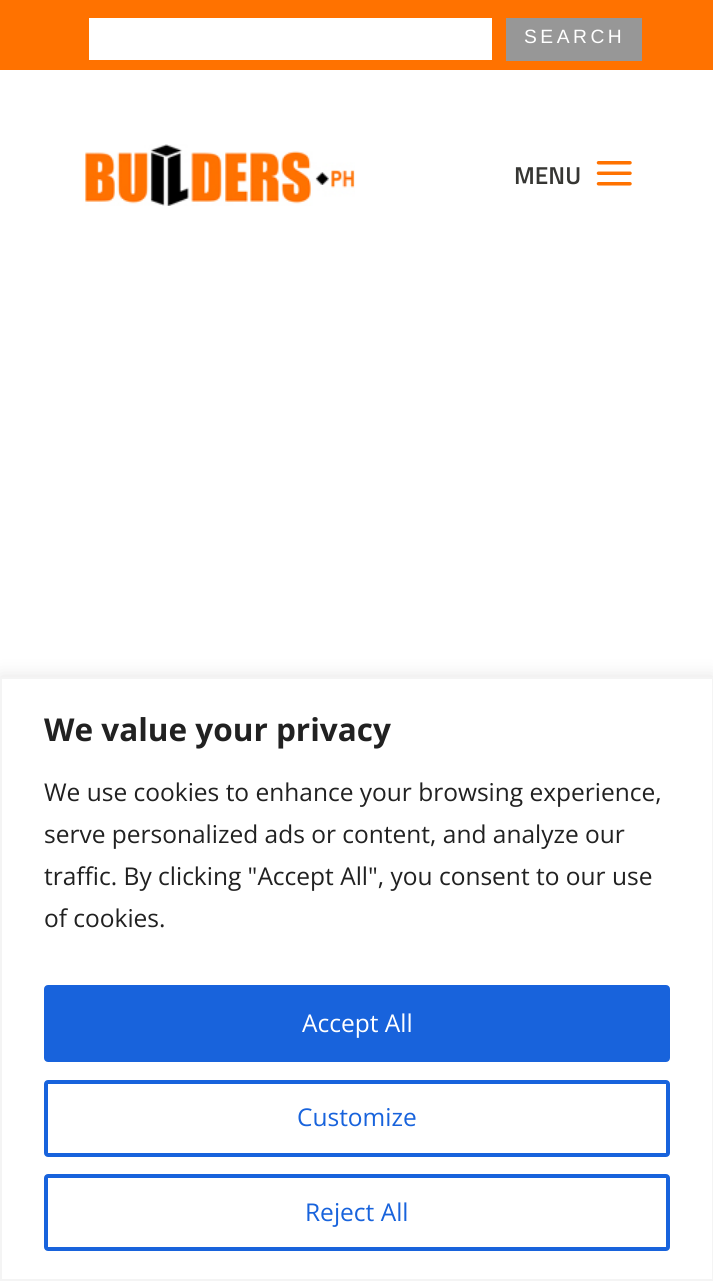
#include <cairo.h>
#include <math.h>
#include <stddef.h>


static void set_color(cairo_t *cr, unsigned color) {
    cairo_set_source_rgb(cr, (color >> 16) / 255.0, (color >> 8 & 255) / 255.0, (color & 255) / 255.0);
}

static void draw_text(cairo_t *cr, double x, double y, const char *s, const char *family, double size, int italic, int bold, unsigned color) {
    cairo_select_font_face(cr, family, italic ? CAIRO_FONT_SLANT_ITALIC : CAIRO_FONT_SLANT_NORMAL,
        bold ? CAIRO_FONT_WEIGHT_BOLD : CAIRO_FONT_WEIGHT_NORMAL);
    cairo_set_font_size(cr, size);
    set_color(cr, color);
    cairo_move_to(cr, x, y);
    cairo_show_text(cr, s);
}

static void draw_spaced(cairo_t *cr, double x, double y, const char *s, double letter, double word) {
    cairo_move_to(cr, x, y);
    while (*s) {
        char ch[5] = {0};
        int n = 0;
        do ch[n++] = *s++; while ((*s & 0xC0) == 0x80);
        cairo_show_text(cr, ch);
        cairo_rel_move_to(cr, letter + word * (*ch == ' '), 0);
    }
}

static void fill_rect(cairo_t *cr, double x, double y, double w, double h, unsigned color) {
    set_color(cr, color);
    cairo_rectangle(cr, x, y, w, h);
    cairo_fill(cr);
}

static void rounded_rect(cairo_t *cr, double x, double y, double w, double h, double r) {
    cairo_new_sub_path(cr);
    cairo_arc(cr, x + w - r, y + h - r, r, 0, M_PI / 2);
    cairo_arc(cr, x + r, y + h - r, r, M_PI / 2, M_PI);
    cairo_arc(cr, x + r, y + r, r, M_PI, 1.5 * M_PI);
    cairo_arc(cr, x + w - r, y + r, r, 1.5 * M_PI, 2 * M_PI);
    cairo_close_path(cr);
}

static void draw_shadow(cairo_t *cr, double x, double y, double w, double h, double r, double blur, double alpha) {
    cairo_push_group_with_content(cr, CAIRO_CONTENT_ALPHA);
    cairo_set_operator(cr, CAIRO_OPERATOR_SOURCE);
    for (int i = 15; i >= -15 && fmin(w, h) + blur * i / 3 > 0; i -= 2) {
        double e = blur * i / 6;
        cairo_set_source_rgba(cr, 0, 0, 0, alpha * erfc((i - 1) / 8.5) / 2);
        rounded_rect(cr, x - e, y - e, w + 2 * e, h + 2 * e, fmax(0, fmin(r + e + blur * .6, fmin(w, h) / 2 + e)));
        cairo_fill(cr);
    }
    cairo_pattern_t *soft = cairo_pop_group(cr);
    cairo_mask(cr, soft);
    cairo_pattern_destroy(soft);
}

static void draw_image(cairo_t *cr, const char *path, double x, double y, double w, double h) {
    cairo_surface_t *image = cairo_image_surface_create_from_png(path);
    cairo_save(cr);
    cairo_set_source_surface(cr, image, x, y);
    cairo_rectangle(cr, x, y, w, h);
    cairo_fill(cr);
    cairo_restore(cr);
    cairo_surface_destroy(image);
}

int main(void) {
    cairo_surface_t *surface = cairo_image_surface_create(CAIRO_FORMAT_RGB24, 713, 1281);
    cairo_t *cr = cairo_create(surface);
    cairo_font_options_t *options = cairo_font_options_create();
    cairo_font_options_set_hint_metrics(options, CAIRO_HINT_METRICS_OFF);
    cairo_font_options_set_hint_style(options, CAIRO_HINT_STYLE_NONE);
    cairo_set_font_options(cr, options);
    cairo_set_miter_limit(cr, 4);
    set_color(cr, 0xFFFFFF);
    cairo_paint(cr);
    fill_rect(cr, 0, 0, 713, 70, 0xFF7200);
    fill_rect(cr, 89, 18, 403, 42, 0xFFFFFF);
    fill_rect(cr, 506, 18, 136, 43, 0x979797);
    cairo_select_font_face(cr, "Liberation Sans", CAIRO_FONT_SLANT_NORMAL, CAIRO_FONT_WEIGHT_NORMAL);
    cairo_set_font_size(cr, 19.25);
    set_color(cr, 0xFFFFFF);
    draw_spaced(cr, 524, 43, "SEARCH", 3.5, 0);
    draw_image(cr, "assets/img1.png", 85, 144, 270, 62);
    draw_text(cr, 514, 184, "MENU", "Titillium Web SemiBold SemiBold", 24.5, 0, 0, 0x363633);
    draw_image(cr, "assets/img2.png", 596, 161, 36, 25);
    set_color(cr, 0xACABAB);
    draw_shadow(cr, 0, 676, 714, 603, 0, 9, 0.3);
    set_color(cr, 0xFFFFFF);
    cairo_rectangle(cr, 1, 678, 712, 602);
    cairo_fill_preserve(cr);
    set_color(cr, 0xF4F4F4);
    cairo_stroke(cr);
    draw_text(cr, 44, 741, "We value your privacy", "Open Sans", 31.5, 0, 1, 0x212121);
    draw_text(cr, 44, 801, "We use cookies to enhance your browsing experience,", "Open Sans", 24.5, 0, 0, 0x212121);
    draw_text(cr, 44, 843, "serve personalized ads or content, and analyze our", "Open Sans", 24.5, 0, 0, 0x212121);
    draw_text(cr, 44, 885, "traffic. By clicking \"Accept All\", you consent to our use", "Open Sans", 24.5, 0, 0, 0x212121);
    draw_text(cr, 44, 927, "of cookies.", "Open Sans", 24.5, 0, 0, 0x212121);
    set_color(cr, 0x1863DC);
    rounded_rect(cr, 46, 987, 622, 73, 2);
    cairo_fill_preserve(cr);
    cairo_set_line_width(cr, 4);
    cairo_stroke(cr);
    draw_text(cr, 302, 1032, "Accept All", "Open Sans", 24.5, 0, 0, 0xFFFFFF);
    rounded_rect(cr, 46, 1082, 622, 73, 2);
    set_color(cr, 0x1863DC);
    cairo_stroke(cr);
    draw_text(cr, 297, 1126, "Customize", "Open Sans", 24.5, 0, 0, 0x1863DC);
    rounded_rect(cr, 46, 1176, 622, 73, 2);
    cairo_stroke(cr);
    draw_text(cr, 305, 1221, "Reject All", "Open Sans", 24.5, 0, 0, 0x1863DC);
    cairo_surface_write_to_png(surface, "output.png");
    cairo_font_options_destroy(options);
    cairo_destroy(cr);
    cairo_surface_destroy(surface);
    return 0;
}
